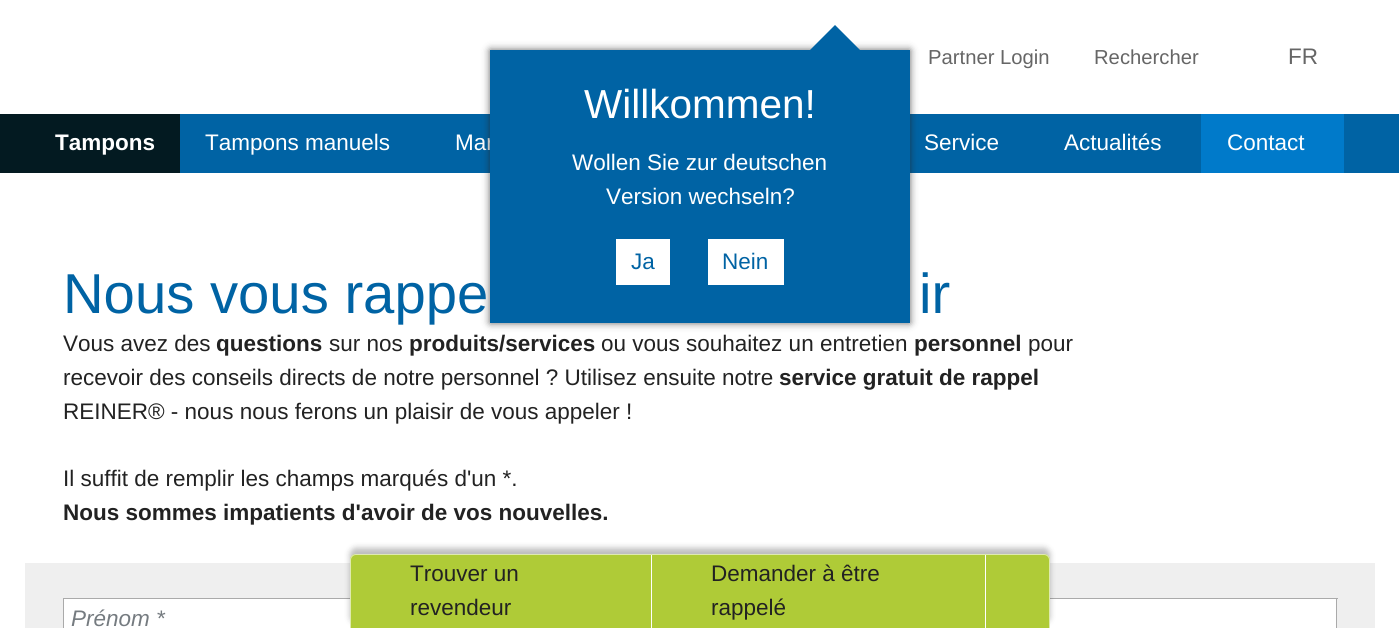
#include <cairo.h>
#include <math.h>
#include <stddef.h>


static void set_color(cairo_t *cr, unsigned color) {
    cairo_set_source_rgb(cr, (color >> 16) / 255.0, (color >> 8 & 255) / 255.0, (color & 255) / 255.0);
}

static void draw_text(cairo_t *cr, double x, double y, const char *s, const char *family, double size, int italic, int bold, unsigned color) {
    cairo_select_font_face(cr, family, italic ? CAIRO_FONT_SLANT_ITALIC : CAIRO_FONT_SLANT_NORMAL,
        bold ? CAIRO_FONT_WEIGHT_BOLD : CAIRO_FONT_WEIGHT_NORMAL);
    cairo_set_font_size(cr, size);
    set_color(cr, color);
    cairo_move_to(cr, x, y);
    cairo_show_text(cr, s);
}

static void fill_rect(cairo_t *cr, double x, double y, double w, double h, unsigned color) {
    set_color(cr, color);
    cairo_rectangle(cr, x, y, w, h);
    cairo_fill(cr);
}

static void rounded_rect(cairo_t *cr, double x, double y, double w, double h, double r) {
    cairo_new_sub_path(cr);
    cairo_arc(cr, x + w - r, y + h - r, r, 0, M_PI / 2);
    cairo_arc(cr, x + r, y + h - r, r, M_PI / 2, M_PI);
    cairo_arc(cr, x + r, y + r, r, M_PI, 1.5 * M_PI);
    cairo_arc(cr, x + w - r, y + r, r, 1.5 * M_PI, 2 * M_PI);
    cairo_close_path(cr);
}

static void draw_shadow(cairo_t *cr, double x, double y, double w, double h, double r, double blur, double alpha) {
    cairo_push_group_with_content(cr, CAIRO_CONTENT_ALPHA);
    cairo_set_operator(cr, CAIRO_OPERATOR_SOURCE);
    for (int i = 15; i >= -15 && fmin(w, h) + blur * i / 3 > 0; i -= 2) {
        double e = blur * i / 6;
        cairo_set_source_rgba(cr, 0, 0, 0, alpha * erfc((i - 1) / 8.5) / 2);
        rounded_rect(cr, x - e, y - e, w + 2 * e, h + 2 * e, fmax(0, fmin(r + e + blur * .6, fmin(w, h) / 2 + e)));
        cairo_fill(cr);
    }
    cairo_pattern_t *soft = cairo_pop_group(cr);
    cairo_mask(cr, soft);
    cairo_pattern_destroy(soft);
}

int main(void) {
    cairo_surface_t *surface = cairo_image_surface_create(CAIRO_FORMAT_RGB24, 1399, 628);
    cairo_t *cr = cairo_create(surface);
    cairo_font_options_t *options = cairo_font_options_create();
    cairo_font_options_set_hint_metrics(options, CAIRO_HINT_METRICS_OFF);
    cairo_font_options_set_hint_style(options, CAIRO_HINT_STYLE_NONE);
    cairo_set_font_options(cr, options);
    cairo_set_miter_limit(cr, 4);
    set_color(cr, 0xFFFFFF);
    cairo_paint(cr);
    draw_text(cr, 928, 64, "Partner Login", "Liberation Sans", 20.25, 0, 0, 0x666666);
    draw_text(cr, 1094, 64, "Rechercher", "Liberation Sans", 20.25, 0, 0, 0x666666);
    draw_text(cr, 1288, 64, "FR", "Liberation Sans", 22.5, 0, 0, 0x666666);
    fill_rect(cr, 180, 114, 1219, 59, 0x0063A4);
    fill_rect(cr, 0, 114, 180, 59, 0x031A21);
    draw_text(cr, 55, 150, "Tampons", "Liberation Sans", 22.5, 0, 1, 0xFFFFFF);
    draw_text(cr, 205, 150, "Tampons manuels", "Liberation Sans", 22.5, 0, 0, 0xFFFFFF);
    draw_text(cr, 455, 150, "Mar", "Liberation Sans", 22.5, 0, 0, 0xFFFFFF);
    draw_text(cr, 924, 150, "Service", "Liberation Sans", 22.5, 0, 0, 0xFFFFFF);
    draw_text(cr, 1064, 150, "Actualités", "Liberation Sans", 22.5, 0, 0, 0xFFFFFF);
    fill_rect(cr, 1201, 114, 143, 59, 0x007ACA);
    draw_text(cr, 1227, 150, "Contact", "Liberation Sans", 22.5, 0, 0, 0xFFFFFF);
    set_color(cr, 0x222222);
    draw_shadow(cr, 490, 50, 420, 273, 0, 4, 0.7);
    fill_rect(cr, 490, 50, 420, 273, 0x0063A4);
    cairo_new_path(cr);
    cairo_move_to(cr, 860, 50);
    cairo_line_to(cr, 810, 50);
    cairo_line_to(cr, 835, 25);
    cairo_close_path(cr);
    cairo_fill(cr);
    draw_text(cr, 584, 118, "Willkommen!", "Liberation Sans", 40.5, 0, 0, 0xFFFFFF);
    draw_text(cr, 572, 170, "Wollen Sie zur deutschen", "Liberation Sans", 22.5, 0, 0, 0xFFFFFF);
    draw_text(cr, 606, 204, "Version wechseln?", "Liberation Sans", 22.5, 0, 0, 0xFFFFFF);
    fill_rect(cr, 616, 239, 54, 46, 0xFFFFFF);
    draw_text(cr, 631, 269, "Ja", "Liberation Sans", 22.5, 0, 0, 0x0063A4);
    fill_rect(cr, 708, 239, 76, 46, 0xFFFFFF);
    draw_text(cr, 722, 269, "Nein", "Liberation Sans", 22.5, 0, 0, 0x0063A4);
    draw_text(cr, 63, 313, "Nous vous rappe", "Liberation Sans", 56.25, 0, 0, 0x0063A4);
    draw_text(cr, 919, 313, "ir", "Liberation Sans", 56.25, 0, 0, 0x0063A4);
    draw_text(cr, 63, 351, "Vous avez des", "Liberation Sans", 22.5, 0, 0, 0x222222);
    draw_text(cr, 216, 351, "questions", "Liberation Sans", 22.5, 0, 1, 0x222222);
    draw_text(cr, 329, 351, "sur nos", "Liberation Sans", 22.5, 0, 0, 0x222222);
    draw_text(cr, 409, 351, "produits/services", "Liberation Sans", 22.5, 0, 1, 0x222222);
    draw_text(cr, 601, 351, "ou vous souhaitez un entretien", "Liberation Sans", 22.5, 0, 0, 0x222222);
    draw_text(cr, 914, 351, "personnel", "Liberation Sans", 22.5, 0, 1, 0x222222);
    draw_text(cr, 1028, 351, "pour", "Liberation Sans", 22.5, 0, 0, 0x222222);
    draw_text(cr, 63, 385, "recevoir des conseils directs de notre personnel ? Utilisez ensuite notre", "Liberation Sans", 22.5, 0, 0, 0x222222);
    draw_text(cr, 779, 385, "service gratuit de rappel", "Liberation Sans", 22.5, 0, 1, 0x222222);
    draw_text(cr, 63, 419, "REINER® - nous nous ferons un plaisir de vous appeler !", "Liberation Sans", 22.5, 0, 0, 0x222222);
    draw_text(cr, 63, 486, "Il suffit de remplir les champs marqués d'un *.", "Liberation Sans", 22.5, 0, 0, 0x222222);
    draw_text(cr, 63, 520, "Nous sommes impatients d'avoir de vos nouvelles.", "Liberation Sans", 22.5, 0, 1, 0x222222);
    fill_rect(cr, 25, 563, 1350, 65, 0xEFEFEF);
    fill_rect(cr, 64, 599, 286, 29, 0xFFFFFF);
    fill_rect(cr, 63, 598, 287, 1, 0xAAAAAA);
    fill_rect(cr, 63, 598, 1, 30, 0xAAAAAA);
    draw_text(cr, 71, 626, "Prénom *", "Liberation Sans", 22.5, 1, 0, 0x757B80);
    fill_rect(cr, 1050, 599, 286, 29, 0xFFFFFF);
    fill_rect(cr, 1050, 598, 288, 1, 0xAAAAAA);
    fill_rect(cr, 1336, 598, 1, 30, 0xAAAAAA);
    set_color(cr, 0x222222);
    draw_shadow(cr, 350, 548, 700, 75, 6, 3, 0.3);
    set_color(cr, 0xAFCB37);
    cairo_new_path(cr);
    cairo_move_to(cr, 356, 554);
    cairo_line_to(cr, 1044, 554);
    cairo_curve_to(cr, 1047.5, 554, 1050, 556.5, 1050, 560);
    cairo_line_to(cr, 1050, 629);
    cairo_line_to(cr, 350, 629);
    cairo_line_to(cr, 350, 560);
    cairo_curve_to(cr, 350, 556.5, 352.5, 554, 356, 554);
    cairo_close_path(cr);
    cairo_fill(cr);
    cairo_new_path(cr);
    cairo_move_to(cr, 356, 554.5);
    cairo_line_to(cr, 1044, 554.5);
    cairo_curve_to(cr, 1047, 554.5, 1049.5, 557, 1049.5, 560);
    cairo_line_to(cr, 1049.5, 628.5);
    cairo_line_to(cr, 350.5, 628.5);
    cairo_line_to(cr, 350.5, 560);
    cairo_curve_to(cr, 350.5, 557, 353, 554.5, 356, 554.5);
    cairo_close_path(cr);
    cairo_set_source_rgba(cr, 1, 1, 1, 0.6);
    cairo_set_line_width(cr, 1);
    cairo_stroke(cr);
    draw_text(cr, 410, 581, "Trouver un", "Liberation Sans", 22.5, 0, 0, 0x222222);
    draw_text(cr, 410, 615, "revendeur", "Liberation Sans", 22.5, 0, 0, 0x222222);
    fill_rect(cr, 651, 555, 1, 73, 0xFFFFFF);
    draw_text(cr, 711, 581, "Demander à être", "Liberation Sans", 22.5, 0, 0, 0x222222);
    draw_text(cr, 711, 615, "rappelé", "Liberation Sans", 22.5, 0, 0, 0x222222);
    fill_rect(cr, 985, 555, 1, 73, 0xFFFFFF);
    cairo_surface_write_to_png(surface, "output.png");
    cairo_font_options_destroy(options);
    cairo_destroy(cr);
    cairo_surface_destroy(surface);
    return 0;
}
